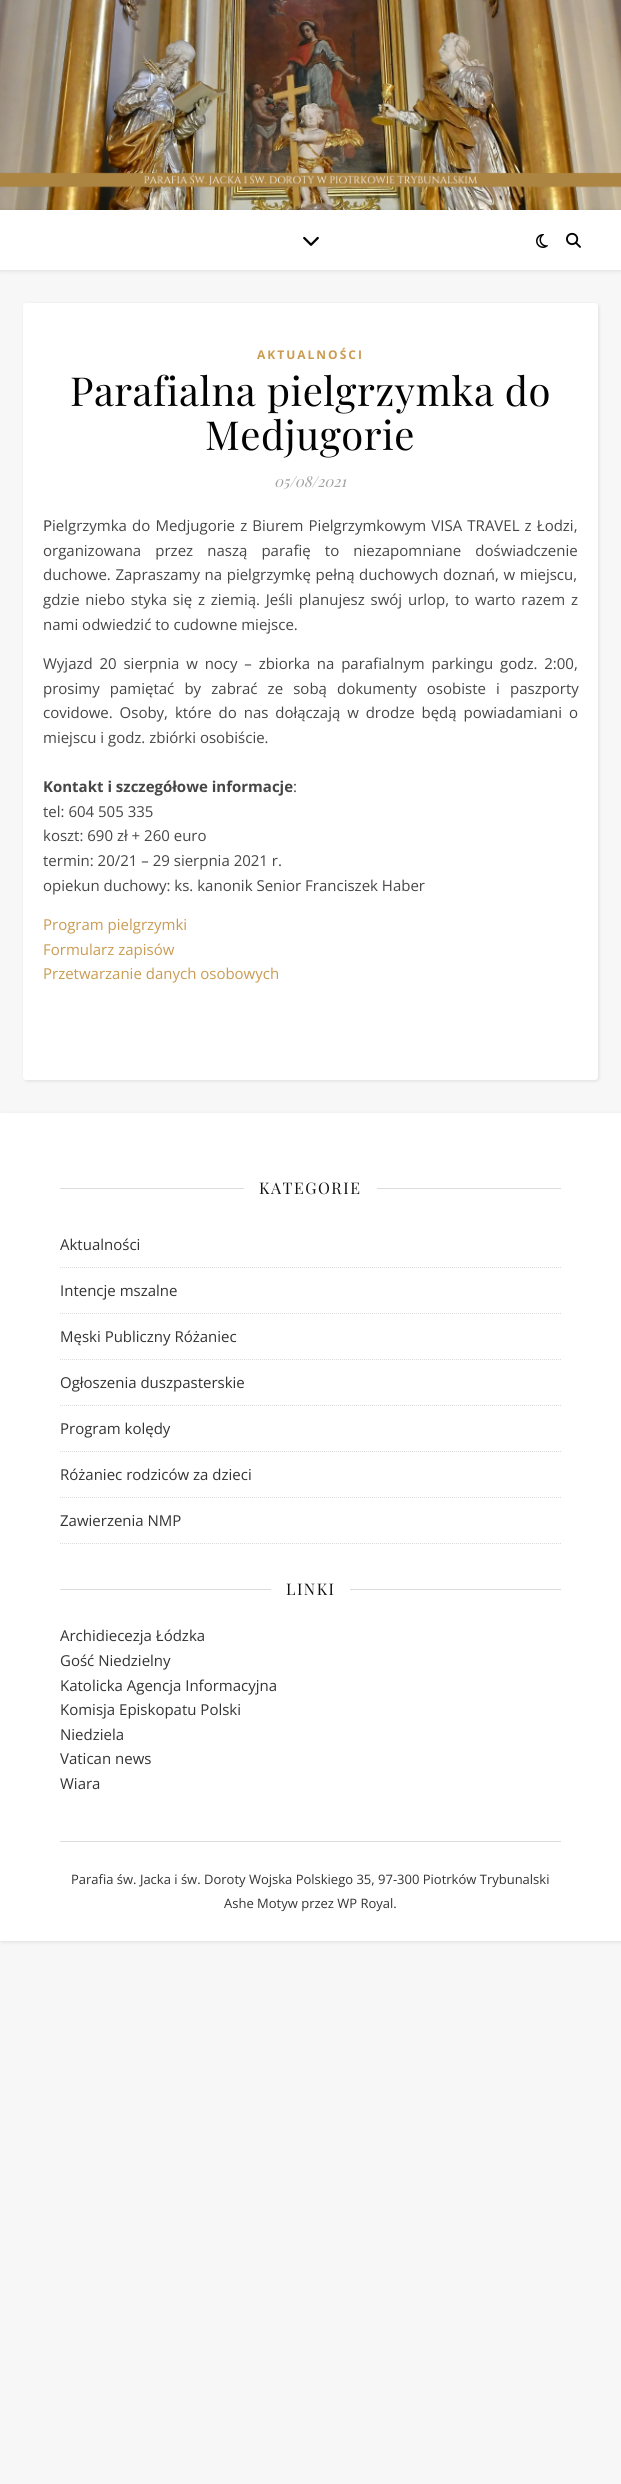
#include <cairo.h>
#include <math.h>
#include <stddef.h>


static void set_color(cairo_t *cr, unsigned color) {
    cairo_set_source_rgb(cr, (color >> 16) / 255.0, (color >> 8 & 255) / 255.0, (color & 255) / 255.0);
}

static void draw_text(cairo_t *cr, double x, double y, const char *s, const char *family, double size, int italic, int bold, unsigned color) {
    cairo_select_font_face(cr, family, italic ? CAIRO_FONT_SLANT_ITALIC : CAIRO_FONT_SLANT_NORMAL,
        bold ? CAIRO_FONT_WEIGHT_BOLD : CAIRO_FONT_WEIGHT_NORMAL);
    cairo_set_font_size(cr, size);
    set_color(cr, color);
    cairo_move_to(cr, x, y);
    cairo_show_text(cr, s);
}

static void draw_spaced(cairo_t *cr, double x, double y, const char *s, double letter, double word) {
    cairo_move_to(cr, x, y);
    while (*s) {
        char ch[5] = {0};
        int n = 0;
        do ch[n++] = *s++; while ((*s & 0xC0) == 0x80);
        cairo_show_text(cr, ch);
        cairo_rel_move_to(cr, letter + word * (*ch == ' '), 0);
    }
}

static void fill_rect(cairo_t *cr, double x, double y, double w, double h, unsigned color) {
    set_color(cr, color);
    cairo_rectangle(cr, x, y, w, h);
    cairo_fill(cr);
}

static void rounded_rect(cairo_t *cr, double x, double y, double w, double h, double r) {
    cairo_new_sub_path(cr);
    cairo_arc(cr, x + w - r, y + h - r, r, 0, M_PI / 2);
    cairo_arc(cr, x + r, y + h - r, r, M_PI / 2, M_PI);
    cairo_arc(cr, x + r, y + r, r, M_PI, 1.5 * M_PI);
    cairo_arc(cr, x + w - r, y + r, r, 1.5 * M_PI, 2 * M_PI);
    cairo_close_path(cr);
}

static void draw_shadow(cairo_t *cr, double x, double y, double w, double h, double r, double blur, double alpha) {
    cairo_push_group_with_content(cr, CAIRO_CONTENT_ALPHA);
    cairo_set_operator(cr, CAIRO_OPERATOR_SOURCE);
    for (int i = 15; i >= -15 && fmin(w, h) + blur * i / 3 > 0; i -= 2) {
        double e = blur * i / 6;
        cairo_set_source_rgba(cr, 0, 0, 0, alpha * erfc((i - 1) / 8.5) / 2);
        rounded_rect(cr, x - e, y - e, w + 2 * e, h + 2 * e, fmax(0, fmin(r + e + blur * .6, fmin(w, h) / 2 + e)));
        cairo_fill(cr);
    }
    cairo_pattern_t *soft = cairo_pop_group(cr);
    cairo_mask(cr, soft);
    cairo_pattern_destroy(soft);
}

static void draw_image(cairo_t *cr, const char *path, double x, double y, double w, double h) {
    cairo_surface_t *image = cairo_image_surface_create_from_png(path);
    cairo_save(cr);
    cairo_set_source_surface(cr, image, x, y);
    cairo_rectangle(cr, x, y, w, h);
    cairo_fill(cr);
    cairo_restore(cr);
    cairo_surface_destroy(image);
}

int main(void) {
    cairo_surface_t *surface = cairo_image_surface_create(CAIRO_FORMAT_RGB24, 621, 2484);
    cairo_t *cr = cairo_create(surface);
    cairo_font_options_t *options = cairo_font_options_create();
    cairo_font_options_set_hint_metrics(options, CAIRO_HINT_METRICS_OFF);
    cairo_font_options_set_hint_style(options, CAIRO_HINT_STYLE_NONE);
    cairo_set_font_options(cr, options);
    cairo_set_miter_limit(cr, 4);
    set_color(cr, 0xF7F7F7);
    cairo_paint(cr);
    draw_image(cr, "assets/img1.png", 0, 0, 621, 210);
    set_color(cr, 0x000000);
    draw_shadow(cr, 0, 211, 621, 60, 0, 2.5, 0.1);
    fill_rect(cr, 0, 210, 621, 60, 0xFFFFFF);
    draw_image(cr, "assets/img2.png", 303, 236, 16, 10);
    draw_image(cr, "assets/img3.png", 536, 234, 12, 14);
    draw_image(cr, "assets/img4.png", 566, 232, 15, 16);
    set_color(cr, 0x000000);
    draw_shadow(cr, 24, 304, 575, 777, 3, 1.5, 0.1);
    set_color(cr, 0xFFFFFF);
    rounded_rect(cr, 23, 303, 575, 777, 3);
    cairo_fill(cr);
    cairo_select_font_face(cr, "Open Sans", CAIRO_FONT_SLANT_NORMAL, CAIRO_FONT_WEIGHT_BOLD);
    cairo_set_font_size(cr, 12);
    set_color(cr, 0xCA9B52);
    draw_spaced(cr, 257, 359, "AKTUALNOŚCI", 2, 0);
    cairo_select_font_face(cr, "Playfair Display", CAIRO_FONT_SLANT_NORMAL, CAIRO_FONT_WEIGHT_NORMAL);
    cairo_set_font_size(cr, 40);
    set_color(cr, 0x030303);
    draw_spaced(cr, 70, 406, "Parafialna pielgrzymka do", 0.5, 0);
    draw_spaced(cr, 205, 450, "Medjugorie", 0.5, 0);
    draw_text(cr, 274, 487, "05/08/2021", "Playfair Display", 15, 1, 0, 0xA1A1A1);
    draw_text(cr, 43, 531, "P", "Noto Sans", 15, 0, 0, 0x464646);
    cairo_select_font_face(cr, "Open Sans", CAIRO_FONT_SLANT_NORMAL, CAIRO_FONT_WEIGHT_NORMAL);
    draw_spaced(cr, 52, 531, "ielgrzymka do Medjugorie z Biurem Pielgrzymkowym VISA TRAVEL z Łodzi,", 0, 1.25);
    draw_spaced(cr, 43, 556, "organizowana przez naszą parafię to niezapomniane doświadczenie", 0, 10.25);
    draw_spaced(cr, 43, 580, "duchowe. Zapraszamy na pielgrzymkę pełną duchowych doznań, w miejscu,", 0, 0.75);
    draw_spaced(cr, 43, 605, "gdzie niebo styka się z ziemią. Jeśli planujesz swój urlop, to warto razem z", 0, 1.9);
    draw_text(cr, 43, 630, "nami odwiedzić to cudowne miejsce.", "Open Sans", 15, 0, 0, 0x464646);
    draw_spaced(cr, 43, 669, "Wyjazd 20 sierpnia w nocy – zbiorka na parafialnym parkingu godz. 2:00,", 0, 2.9);
    draw_spaced(cr, 43, 694, "prosimy pamiętać by zabrać ze sobą dokumenty osobiste i paszporty", 0, 6.25);
    draw_spaced(cr, 43, 718, "covidowe. Osoby, które do nas dołączają w drodze będą powiadamiani o", 0, 3);
    draw_text(cr, 43, 743, "miejscu i godz. zbiórki osobiście.", "Open Sans", 15, 0, 0, 0x464646);
    draw_text(cr, 43, 792, "Kontakt i szczegółowe informacje", "Open Sans", 15, 0, 1, 0x464646);
    draw_text(cr, 293, 792, ":", "Open Sans", 15, 0, 0, 0x464646);
    draw_text(cr, 43, 817, "tel: 604 505 335", "Open Sans", 15, 0, 0, 0x464646);
    draw_text(cr, 43, 841, "koszt: 690 zł + 260 euro", "Open Sans", 15, 0, 0, 0x464646);
    draw_text(cr, 43, 866, "termin: 20/21 – 29 sierpnia 2021 r.", "Open Sans", 15, 0, 0, 0x464646);
    draw_text(cr, 43, 891, "opiekun duchowy: ks. kanonik Senior Franciszek Haber", "Open Sans", 15, 0, 0, 0x464646);
    draw_text(cr, 43, 930, "Program pielgrzymki", "Open Sans", 15, 0, 0, 0xCA9B52);
    draw_text(cr, 43, 955, "Formularz zapisów", "Open Sans", 15, 0, 0, 0xCA9B52);
    draw_text(cr, 43, 979, "Przetwarzanie danych osobowych", "Open Sans", 15, 0, 0, 0xCA9B52);
    set_color(cr, 0x000000);
    draw_shadow(cr, 1, 1114, 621, 828, 0, 1.5, 0.1);
    fill_rect(cr, 0, 1113, 621, 828, 0xFFFFFF);
    fill_rect(cr, 60, 1841, 501, 1, 0xE0DBDB);
    fill_rect(cr, 60, 1188, 184, 1, 0xE0DBDB);
    cairo_select_font_face(cr, "Playfair Display", CAIRO_FONT_SLANT_NORMAL, CAIRO_FONT_WEIGHT_NORMAL);
    cairo_set_font_size(cr, 16);
    set_color(cr, 0x111111);
    draw_spaced(cr, 259, 1194, "KATEGORIE", 1.5, 0);
    fill_rect(cr, 377, 1188, 184, 1, 0xE0DBDB);
    cairo_new_path(cr);
    cairo_move_to(cr, 60, 1267.5);
    cairo_line_to(cr, 561, 1267.5);
    cairo_set_line_width(cr, 1);
    cairo_set_dash(cr, (double[]){1, 1}, 2, 0);
    cairo_stroke(cr);
    draw_text(cr, 60, 1250, "Aktualności", "Open Sans", 15, 0, 0, 0x333333);
    cairo_new_path(cr);
    cairo_move_to(cr, 60, 1313.5);
    cairo_line_to(cr, 561, 1313.5);
    set_color(cr, 0xE0DBDB);
    cairo_stroke(cr);
    draw_text(cr, 60, 1296, "Intencje mszalne", "Open Sans", 15, 0, 0, 0x333333);
    cairo_new_path(cr);
    cairo_move_to(cr, 60, 1359.5);
    cairo_line_to(cr, 561, 1359.5);
    set_color(cr, 0xE0DBDB);
    cairo_stroke(cr);
    draw_text(cr, 60, 1342, "Męski Publiczny Różaniec", "Open Sans", 15, 0, 0, 0x333333);
    cairo_new_path(cr);
    cairo_move_to(cr, 60, 1405.5);
    cairo_line_to(cr, 561, 1405.5);
    set_color(cr, 0xE0DBDB);
    cairo_stroke(cr);
    draw_text(cr, 60, 1388, "Ogłoszenia duszpasterskie", "Open Sans", 15, 0, 0, 0x333333);
    cairo_new_path(cr);
    cairo_move_to(cr, 60, 1451.5);
    cairo_line_to(cr, 561, 1451.5);
    set_color(cr, 0xE0DBDB);
    cairo_stroke(cr);
    draw_text(cr, 60, 1434, "Program kolędy", "Open Sans", 15, 0, 0, 0x333333);
    cairo_new_path(cr);
    cairo_move_to(cr, 60, 1497.5);
    cairo_line_to(cr, 561, 1497.5);
    set_color(cr, 0xE0DBDB);
    cairo_stroke(cr);
    draw_text(cr, 60, 1480, "Różaniec rodziców za dzieci", "Open Sans", 15, 0, 0, 0x333333);
    cairo_new_path(cr);
    cairo_move_to(cr, 60, 1543.5);
    cairo_line_to(cr, 561, 1543.5);
    set_color(cr, 0xE0DBDB);
    cairo_stroke(cr);
    draw_text(cr, 60, 1526, "Zawierzenia NMP", "Open Sans", 15, 0, 0, 0x333333);
    fill_rect(cr, 60, 1589, 211, 1, 0xE0DBDB);
    cairo_select_font_face(cr, "Playfair Display", CAIRO_FONT_SLANT_NORMAL, CAIRO_FONT_WEIGHT_NORMAL);
    cairo_set_font_size(cr, 16);
    set_color(cr, 0x111111);
    draw_spaced(cr, 286, 1595, "LINKI", 1.5, 0);
    fill_rect(cr, 350, 1589, 211, 1, 0xE0DBDB);
    draw_text(cr, 60, 1641, "Archidiecezja Łódzka", "Open Sans", 15, 0, 0, 0x333333);
    draw_text(cr, 60, 1666, "Gość Niedzielny", "Open Sans", 15, 0, 0, 0x333333);
    draw_text(cr, 60, 1691, "Katolicka Agencja Informacyjna", "Open Sans", 15, 0, 0, 0x333333);
    draw_text(cr, 60, 1715, "Komisja Episkopatu Polski", "Open Sans", 15, 0, 0, 0x333333);
    draw_text(cr, 60, 1740, "Niedziela", "Open Sans", 15, 0, 0, 0x333333);
    draw_text(cr, 60, 1764, "Vatican news", "Open Sans", 15, 0, 0, 0x333333);
    draw_text(cr, 60, 1789, "Wiara", "Open Sans", 15, 0, 0, 0x333333);
    draw_text(cr, 71, 1884, "Parafia św. Jacka i św. Doroty Wojska Polskiego 35, 97-300 Piotrków Trybunalski", "Open Sans", 13, 0, 0, 0x333333);
    draw_text(cr, 224, 1908, "Ashe Motyw przez WP Royal.", "Open Sans", 13, 0, 0, 0x333333);
    cairo_surface_write_to_png(surface, "output.png");
    cairo_font_options_destroy(options);
    cairo_destroy(cr);
    cairo_surface_destroy(surface);
    return 0;
}
